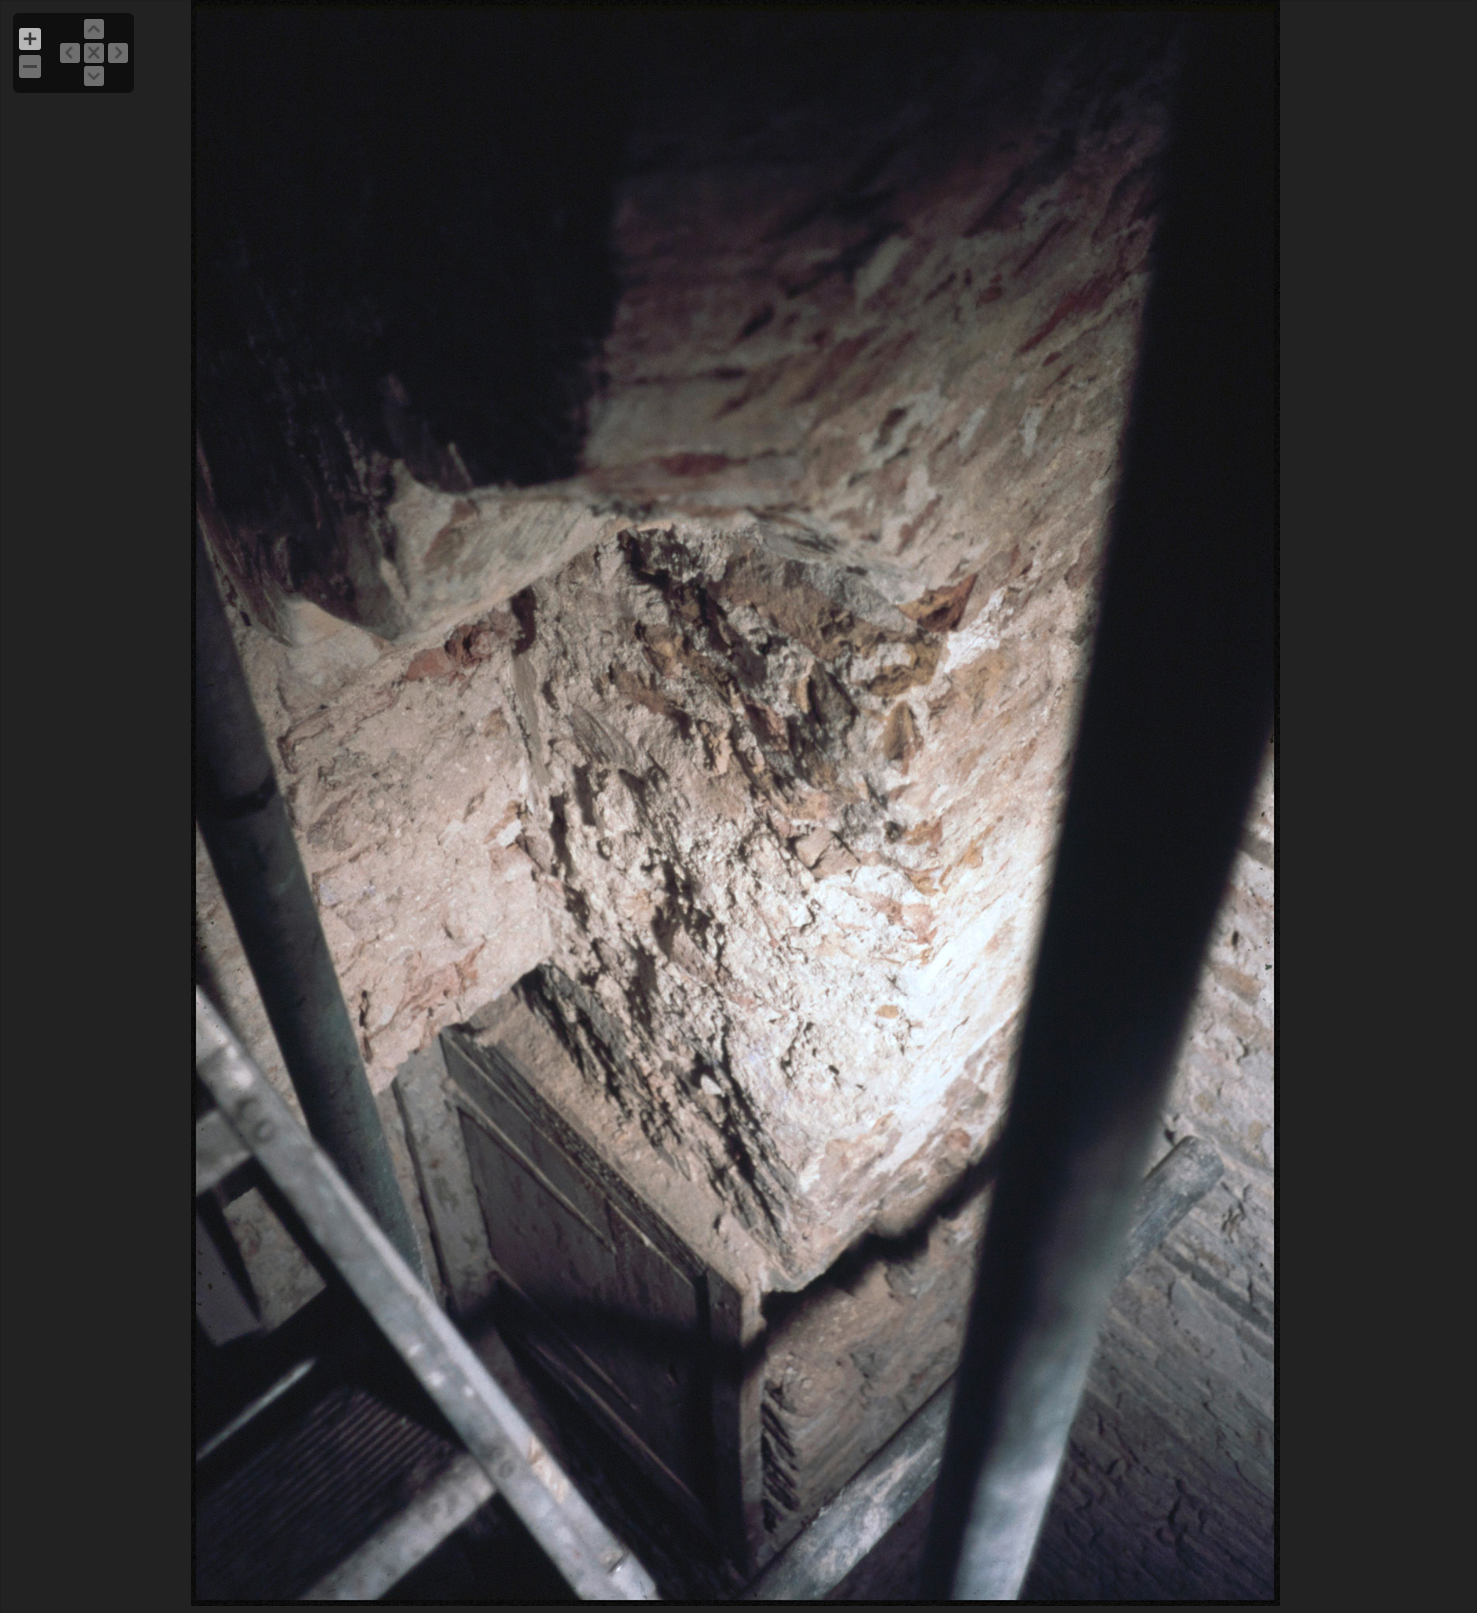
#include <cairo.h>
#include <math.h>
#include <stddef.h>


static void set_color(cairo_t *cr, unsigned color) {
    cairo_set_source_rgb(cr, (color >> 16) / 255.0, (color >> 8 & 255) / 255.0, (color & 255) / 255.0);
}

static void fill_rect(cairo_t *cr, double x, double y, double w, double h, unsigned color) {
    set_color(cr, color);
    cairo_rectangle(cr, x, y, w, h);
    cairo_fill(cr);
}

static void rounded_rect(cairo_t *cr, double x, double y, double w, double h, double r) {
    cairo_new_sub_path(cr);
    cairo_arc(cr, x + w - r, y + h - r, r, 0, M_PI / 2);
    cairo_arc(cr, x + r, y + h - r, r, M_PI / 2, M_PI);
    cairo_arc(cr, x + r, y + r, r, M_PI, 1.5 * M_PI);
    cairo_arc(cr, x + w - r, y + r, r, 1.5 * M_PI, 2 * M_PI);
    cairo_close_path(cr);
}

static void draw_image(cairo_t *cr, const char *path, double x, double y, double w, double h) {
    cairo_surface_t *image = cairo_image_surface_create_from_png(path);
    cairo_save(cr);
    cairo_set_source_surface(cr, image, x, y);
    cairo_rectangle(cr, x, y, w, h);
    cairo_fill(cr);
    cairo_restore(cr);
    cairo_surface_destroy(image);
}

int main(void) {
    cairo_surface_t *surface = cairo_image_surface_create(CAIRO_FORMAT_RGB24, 1477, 1613);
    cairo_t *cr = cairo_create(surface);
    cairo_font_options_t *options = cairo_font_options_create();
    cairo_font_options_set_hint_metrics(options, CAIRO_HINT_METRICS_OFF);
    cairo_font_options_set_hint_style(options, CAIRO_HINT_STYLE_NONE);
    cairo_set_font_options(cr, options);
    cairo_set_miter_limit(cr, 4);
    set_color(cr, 0x222222);
    cairo_paint(cr);
    fill_rect(cr, 0, 0, 1, 1613, 0x1F1F1F);
    draw_image(cr, "assets/img7.png", 191, 0, 1089, 1606);
    cairo_set_source_rgba(cr, 0, 0, 0, 0.1);
    cairo_rectangle(cr, 1, 0, 1475, 1);
    cairo_fill(cr);
    set_color(cr, 0x0F0F0F);
    rounded_rect(cr, 13, 13, 121, 80, 6);
    cairo_fill(cr);
    set_color(cr, 0xB7B7B7);
    rounded_rect(cr, 19, 28, 22, 22, 2.5);
    cairo_fill(cr);
    draw_image(cr, "assets/img1.png", 23, 32, 14, 14);
    set_color(cr, 0x6F6F6F);
    rounded_rect(cr, 84, 19, 20, 20, 2.5);
    cairo_fill(cr);
    draw_image(cr, "assets/img2.png", 87, 25, 13, 8);
    rounded_rect(cr, 60, 43, 20, 20, 2.5);
    cairo_fill(cr);
    draw_image(cr, "assets/img3.png", 65, 46, 8, 13);
    rounded_rect(cr, 84, 43, 20, 20, 2.5);
    cairo_fill(cr);
    draw_image(cr, "assets/img4.png", 87, 46, 13, 13);
    rounded_rect(cr, 108, 43, 20, 20, 2.5);
    cairo_fill(cr);
    draw_image(cr, "assets/img5.png", 115, 46, 8, 13);
    rounded_rect(cr, 19, 55, 22, 23, 2.5);
    cairo_fill(cr);
    fill_rect(cr, 23, 65, 14, 3, 0x434343);
    set_color(cr, 0x6F6F6F);
    rounded_rect(cr, 84, 66, 20, 20, 2.5);
    cairo_fill(cr);
    draw_image(cr, "assets/img6.png", 87, 72, 13, 8);
    fill_rect(cr, 1476, 0, 1, 1613, 0x1F1F1F);
    cairo_surface_write_to_png(surface, "output.png");
    cairo_font_options_destroy(options);
    cairo_destroy(cr);
    cairo_surface_destroy(surface);
    return 0;
}
